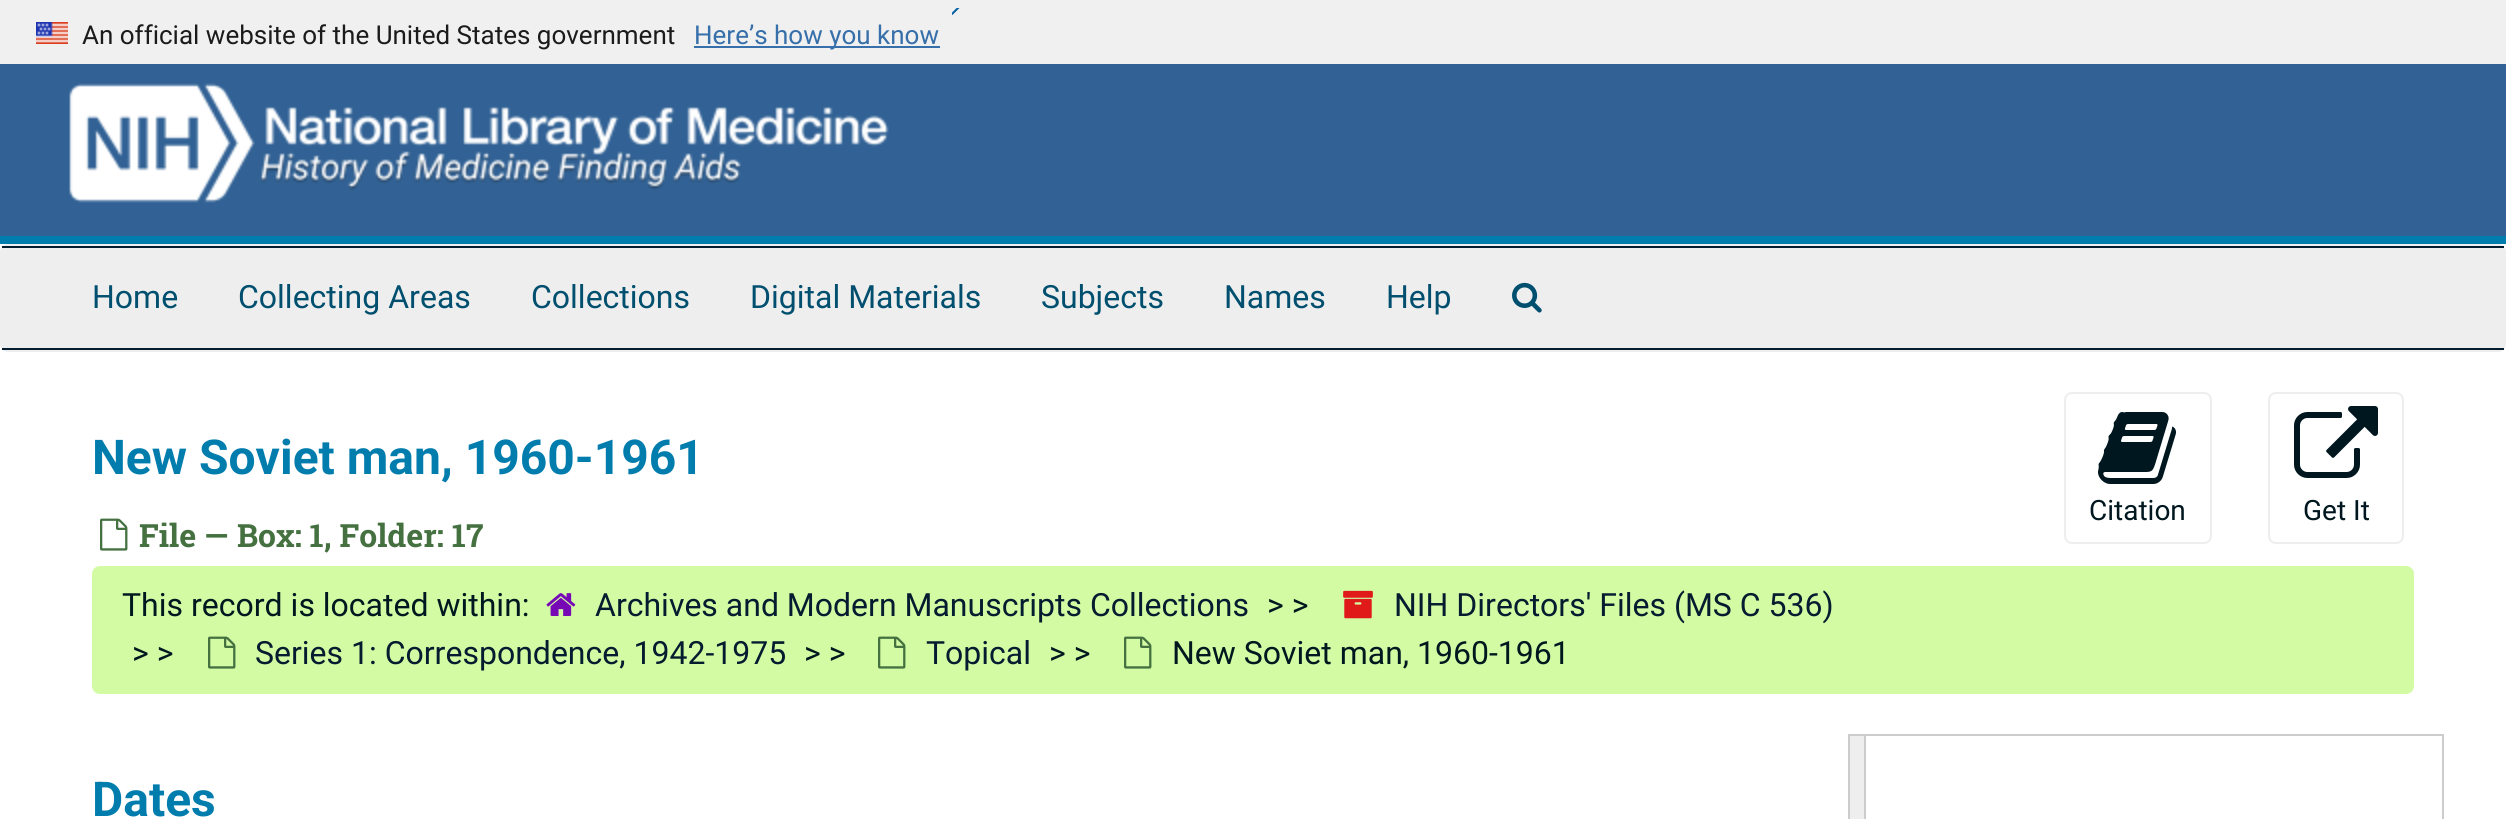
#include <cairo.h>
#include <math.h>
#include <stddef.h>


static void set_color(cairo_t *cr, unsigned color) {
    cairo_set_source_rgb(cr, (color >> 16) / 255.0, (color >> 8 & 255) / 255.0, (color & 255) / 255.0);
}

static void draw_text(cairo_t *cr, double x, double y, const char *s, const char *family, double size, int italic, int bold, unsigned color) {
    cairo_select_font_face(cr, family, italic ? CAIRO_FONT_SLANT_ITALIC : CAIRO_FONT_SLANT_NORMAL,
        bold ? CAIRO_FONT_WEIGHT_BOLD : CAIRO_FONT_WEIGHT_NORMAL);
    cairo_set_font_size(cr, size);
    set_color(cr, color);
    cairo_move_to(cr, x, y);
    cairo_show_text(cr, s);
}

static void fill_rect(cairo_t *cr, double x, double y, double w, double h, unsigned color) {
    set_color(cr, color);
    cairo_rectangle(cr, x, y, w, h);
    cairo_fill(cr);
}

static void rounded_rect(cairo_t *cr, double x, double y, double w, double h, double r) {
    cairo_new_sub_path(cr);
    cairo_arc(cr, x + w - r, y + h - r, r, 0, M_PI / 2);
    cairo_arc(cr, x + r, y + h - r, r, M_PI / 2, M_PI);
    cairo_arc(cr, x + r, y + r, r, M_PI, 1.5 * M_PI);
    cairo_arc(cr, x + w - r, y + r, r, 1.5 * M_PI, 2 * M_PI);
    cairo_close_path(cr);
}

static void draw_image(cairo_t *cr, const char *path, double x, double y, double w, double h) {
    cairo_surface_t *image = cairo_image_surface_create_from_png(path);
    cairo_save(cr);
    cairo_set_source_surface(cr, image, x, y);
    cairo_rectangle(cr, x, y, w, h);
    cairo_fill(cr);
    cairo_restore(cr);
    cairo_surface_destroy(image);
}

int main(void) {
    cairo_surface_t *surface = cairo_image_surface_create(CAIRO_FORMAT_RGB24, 2506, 819);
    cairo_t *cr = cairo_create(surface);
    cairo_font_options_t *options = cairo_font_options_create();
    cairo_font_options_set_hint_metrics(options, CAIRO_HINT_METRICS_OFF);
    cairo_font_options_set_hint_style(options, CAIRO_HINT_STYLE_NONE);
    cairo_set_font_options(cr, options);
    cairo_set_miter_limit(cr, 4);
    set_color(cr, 0xFFFFFF);
    cairo_paint(cr);
    fill_rect(cr, 0, 0, 2506, 64, 0xF0F0F0);
    draw_image(cr, "assets/img1.png", 952, 8, 8, 7);
    draw_image(cr, "assets/img2.png", 36, 22, 32, 22);
    draw_text(cr, 82, 44, "An official website of the United States government", "Roboto", 26, 0, 0, 0x1B1B1B);
    fill_rect(cr, 694, 46, 246, 2, 0x376FAA);
    draw_text(cr, 694, 44, "Here’s how you know", "Roboto", 26, 0, 0, 0x376FAA);
    fill_rect(cr, 0, 64, 2506, 172, 0x326295);
    fill_rect(cr, 0, 236, 2506, 8, 0x007CAD);
    draw_image(cr, "assets/img3.png", 69, 83, 820, 120);
    set_color(cr, 0xEEEEEE);
    rounded_rect(cr, 1, 245, 2504, 106, 7);
    cairo_fill_preserve(cr);
    cairo_stroke(cr);
    fill_rect(cr, 2, 246, 2502, 2, 0x041C2F);
    fill_rect(cr, 2, 348, 2502, 2, 0x041C2F);
    draw_text(cr, 92, 308, "Home", "Roboto", 32, 0, 0, 0x004F6F);
    draw_text(cr, 238, 308, "Collecting Areas", "Roboto", 32, 0, 0, 0x004F6F);
    draw_text(cr, 531, 308, "Collections", "Roboto", 32, 0, 0, 0x004F6F);
    draw_text(cr, 750, 308, "Digital Materials", "Roboto", 32, 0, 0, 0x004F6F);
    draw_text(cr, 1041, 308, "Subjects", "Roboto", 32, 0, 0, 0x004F6F);
    draw_text(cr, 1224, 308, "Names", "Roboto", 32, 0, 0, 0x004F6F);
    draw_text(cr, 1386, 308, "Help", "Roboto", 32, 0, 0, 0x004F6F);
    draw_image(cr, "assets/img4.png", 1512, 282, 30, 31);
    draw_text(cr, 92, 474, "New Soviet man, 1960-1961", "Roboto", 48, 0, 1, 0x007CAD);
    draw_image(cr, "assets/img5.png", 100, 518, 28, 33);
    draw_text(cr, 139, 547, "File — Box: 1, Folder: 17", "Roboto Slab", 32, 0, 1, 0x457141);
    rounded_rect(cr, 2065, 393, 146, 150, 7);
    set_color(cr, 0xEEEEEE);
    cairo_stroke(cr);
    draw_image(cr, "assets/img6.png", 2098, 412, 78, 72);
    draw_text(cr, 2089, 520, "Citation", "Roboto", 28, 0, 0, 0x00171F);
    rounded_rect(cr, 2269, 393, 134, 150, 7);
    set_color(cr, 0xEEEEEE);
    cairo_stroke(cr);
    draw_image(cr, "assets/img7.png", 2294, 406, 84, 72);
    draw_text(cr, 2303, 520, "Get It", "Roboto", 28, 0, 0, 0x00171F);
    set_color(cr, 0xD2FBA4);
    rounded_rect(cr, 92, 566, 2322, 128, 8);
    cairo_fill(cr);
    draw_text(cr, 122, 616, "This record is located within:", "Roboto", 32, 0, 0, 0x00171F);
    draw_image(cr, "assets/img8.png", 546, 593, 30, 23);
    draw_text(cr, 595, 616, "Archives and Modern Manuscripts Collections", "Roboto", 32, 0, 0, 0x041C2F);
    draw_text(cr, 1267, 616, "> >", "Roboto", 32, 0, 0, 0x00171F);
    draw_image(cr, "assets/img9.png", 1343, 590, 30, 29);
    draw_text(cr, 1394, 616, "NIH Directors' Files (MS C 536)", "Roboto", 32, 0, 0, 0x041C2F);
    draw_text(cr, 132, 664, "> >", "Roboto", 32, 0, 0, 0x00171F);
    draw_image(cr, "assets/img10.png", 208, 636, 28, 33);
    draw_text(cr, 255, 664, "Series 1: Correspondence, 1942-1975", "Roboto", 32, 0, 0, 0x041C2F);
    draw_text(cr, 804, 664, "> >", "Roboto", 32, 0, 0, 0x00171F);
    draw_image(cr, "assets/img10.png", 878, 636, 28, 33);
    draw_text(cr, 926, 664, "Topical", "Roboto", 32, 0, 0, 0x041C2F);
    draw_text(cr, 1049, 664, "> >", "Roboto", 32, 0, 0, 0x00171F);
    draw_image(cr, "assets/img10.png", 1124, 636, 28, 33);
    draw_text(cr, 1172, 664, "New Soviet man, 1960-1961", "Roboto", 32, 0, 0, 0x00171F);
    draw_text(cr, 92, 816, "Dates", "Roboto", 48, 0, 1, 0x007CAD);
    cairo_rectangle(cr, 1849, 735, 594, 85);
    set_color(cr, 0xCCCCCC);
    cairo_stroke(cr);
    fill_rect(cr, 1850, 736, 14, 83, 0xEEEEEE);
    fill_rect(cr, 1864, 736, 2, 83, 0xCCCCCC);
    cairo_surface_write_to_png(surface, "output.png");
    cairo_font_options_destroy(options);
    cairo_destroy(cr);
    cairo_surface_destroy(surface);
    return 0;
}
